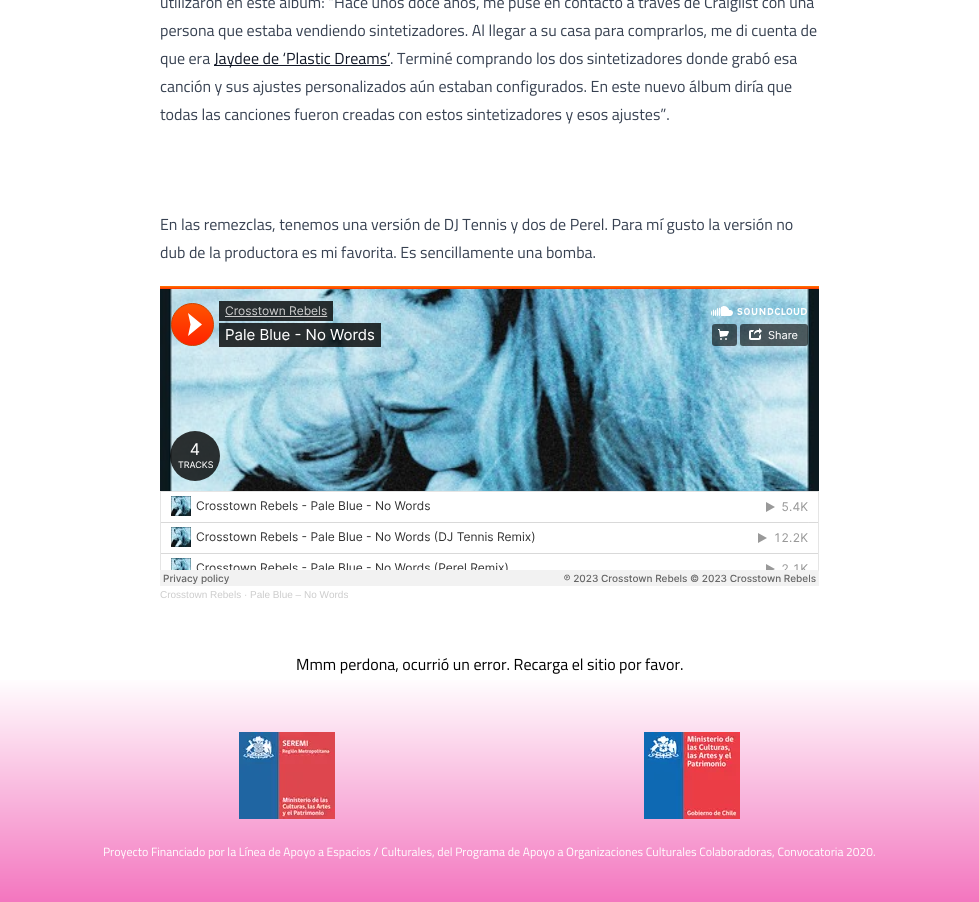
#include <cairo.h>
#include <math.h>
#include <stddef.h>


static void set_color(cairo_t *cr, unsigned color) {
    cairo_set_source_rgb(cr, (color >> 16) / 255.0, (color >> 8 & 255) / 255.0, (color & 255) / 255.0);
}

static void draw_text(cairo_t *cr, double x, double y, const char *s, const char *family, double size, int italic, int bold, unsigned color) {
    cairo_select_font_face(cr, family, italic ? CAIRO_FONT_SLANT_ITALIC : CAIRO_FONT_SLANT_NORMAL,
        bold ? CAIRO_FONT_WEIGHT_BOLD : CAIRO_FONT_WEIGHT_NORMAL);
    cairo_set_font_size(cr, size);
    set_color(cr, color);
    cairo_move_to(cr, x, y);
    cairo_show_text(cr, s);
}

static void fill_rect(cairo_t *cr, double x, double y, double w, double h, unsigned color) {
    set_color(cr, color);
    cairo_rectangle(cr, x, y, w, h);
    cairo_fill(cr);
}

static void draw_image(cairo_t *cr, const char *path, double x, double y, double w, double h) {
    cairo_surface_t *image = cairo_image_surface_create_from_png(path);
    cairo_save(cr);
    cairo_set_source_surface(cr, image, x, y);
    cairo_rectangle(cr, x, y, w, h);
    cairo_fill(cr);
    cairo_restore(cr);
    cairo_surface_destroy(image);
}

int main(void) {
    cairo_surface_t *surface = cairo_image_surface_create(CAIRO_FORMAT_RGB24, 979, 902);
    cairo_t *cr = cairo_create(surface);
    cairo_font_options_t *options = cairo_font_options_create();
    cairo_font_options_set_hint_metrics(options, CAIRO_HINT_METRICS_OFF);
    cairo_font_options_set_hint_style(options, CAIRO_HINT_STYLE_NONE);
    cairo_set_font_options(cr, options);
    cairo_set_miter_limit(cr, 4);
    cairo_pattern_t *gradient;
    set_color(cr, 0xFFFFFF);
    cairo_paint(cr);
    draw_text(cr, 160, 8, "utilizaron en este álbum: “Hace unos doce años, me puse en contacto a través de Craiglist con una", "Titillium Web", 16, 0, 0, 0x374151);
    draw_text(cr, 160, 36, "persona que estaba vendiendo sintetizadores. Al llegar a su casa para comprarlos, me di cuenta de", "Titillium Web", 16, 0, 0, 0x374151);
    draw_text(cr, 160, 64, "que era", "Titillium Web", 16, 0, 0, 0x374151);
    fill_rect(cr, 214, 65, 176, 1, 0x111827);
    draw_text(cr, 214, 64, "Jaydee de ‘Plastic Dreams’", "Titillium Web", 16, 0, 0, 0x111827);
    draw_text(cr, 390, 64, ". Terminé comprando los dos sintetizadores donde grabó esa", "Titillium Web", 16, 0, 0, 0x374151);
    draw_text(cr, 160, 92, "canción y sus ajustes personalizados aún estaban configurados. En este nuevo álbum diría que", "Titillium Web", 16, 0, 0, 0x374151);
    draw_text(cr, 160, 120, "todas las canciones fueron creadas con estos sintetizadores y esos ajustes”.", "Titillium Web", 16, 0, 0, 0x374151);
    draw_text(cr, 160, 230, "En las remezclas, tenemos una versión de DJ Tennis y dos de Perel. Para mí gusto la versión no", "Titillium Web", 16, 0, 0, 0x374151);
    draw_text(cr, 160, 258, "dub de la productora es mi favorita. Es sencillamente una bomba.", "Titillium Web", 16, 0, 0, 0x374151);
    draw_image(cr, "assets/img1.png", 160, 286, 659, 300);
    draw_text(cr, 160, 598, "Crosstown Rebels · Pale Blue – No Words", "Liberation Sans", 10, 0, 0, 0xCCCCCC);
    draw_text(cr, 296, 670, "Mmm perdona, ocurrió un error. Recarga el sitio por favor.", "Titillium Web", 16, 0, 0, 0x000000);
    gradient = cairo_pattern_create_linear(490, 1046, 490, 676);
    cairo_pattern_add_color_stop_rgba(gradient, 0, 0.925, 0.118, 0.588, 1);
    cairo_pattern_add_color_stop_rgba(gradient, 1, 1, 1, 1, 1);
    cairo_set_source(cr, gradient);
    cairo_pattern_destroy(gradient);
    cairo_rectangle(cr, 0, 680, 979, 222);
    cairo_fill(cr);
    draw_image(cr, "assets/img2.png", 239, 732, 96, 87);
    draw_image(cr, "assets/img3.png", 644, 732, 96, 87);
    draw_text(cr, 103, 856, "Proyecto Financiado por la Línea de Apoyo a Espacios / Culturales, del Programa de Apoyo a Organizaciones Culturales Colaboradoras, Convocatoria 2020.", "Titillium Web", 12, 0, 0, 0xFFFFFF);
    cairo_surface_write_to_png(surface, "output.png");
    cairo_font_options_destroy(options);
    cairo_destroy(cr);
    cairo_surface_destroy(surface);
    return 0;
}
